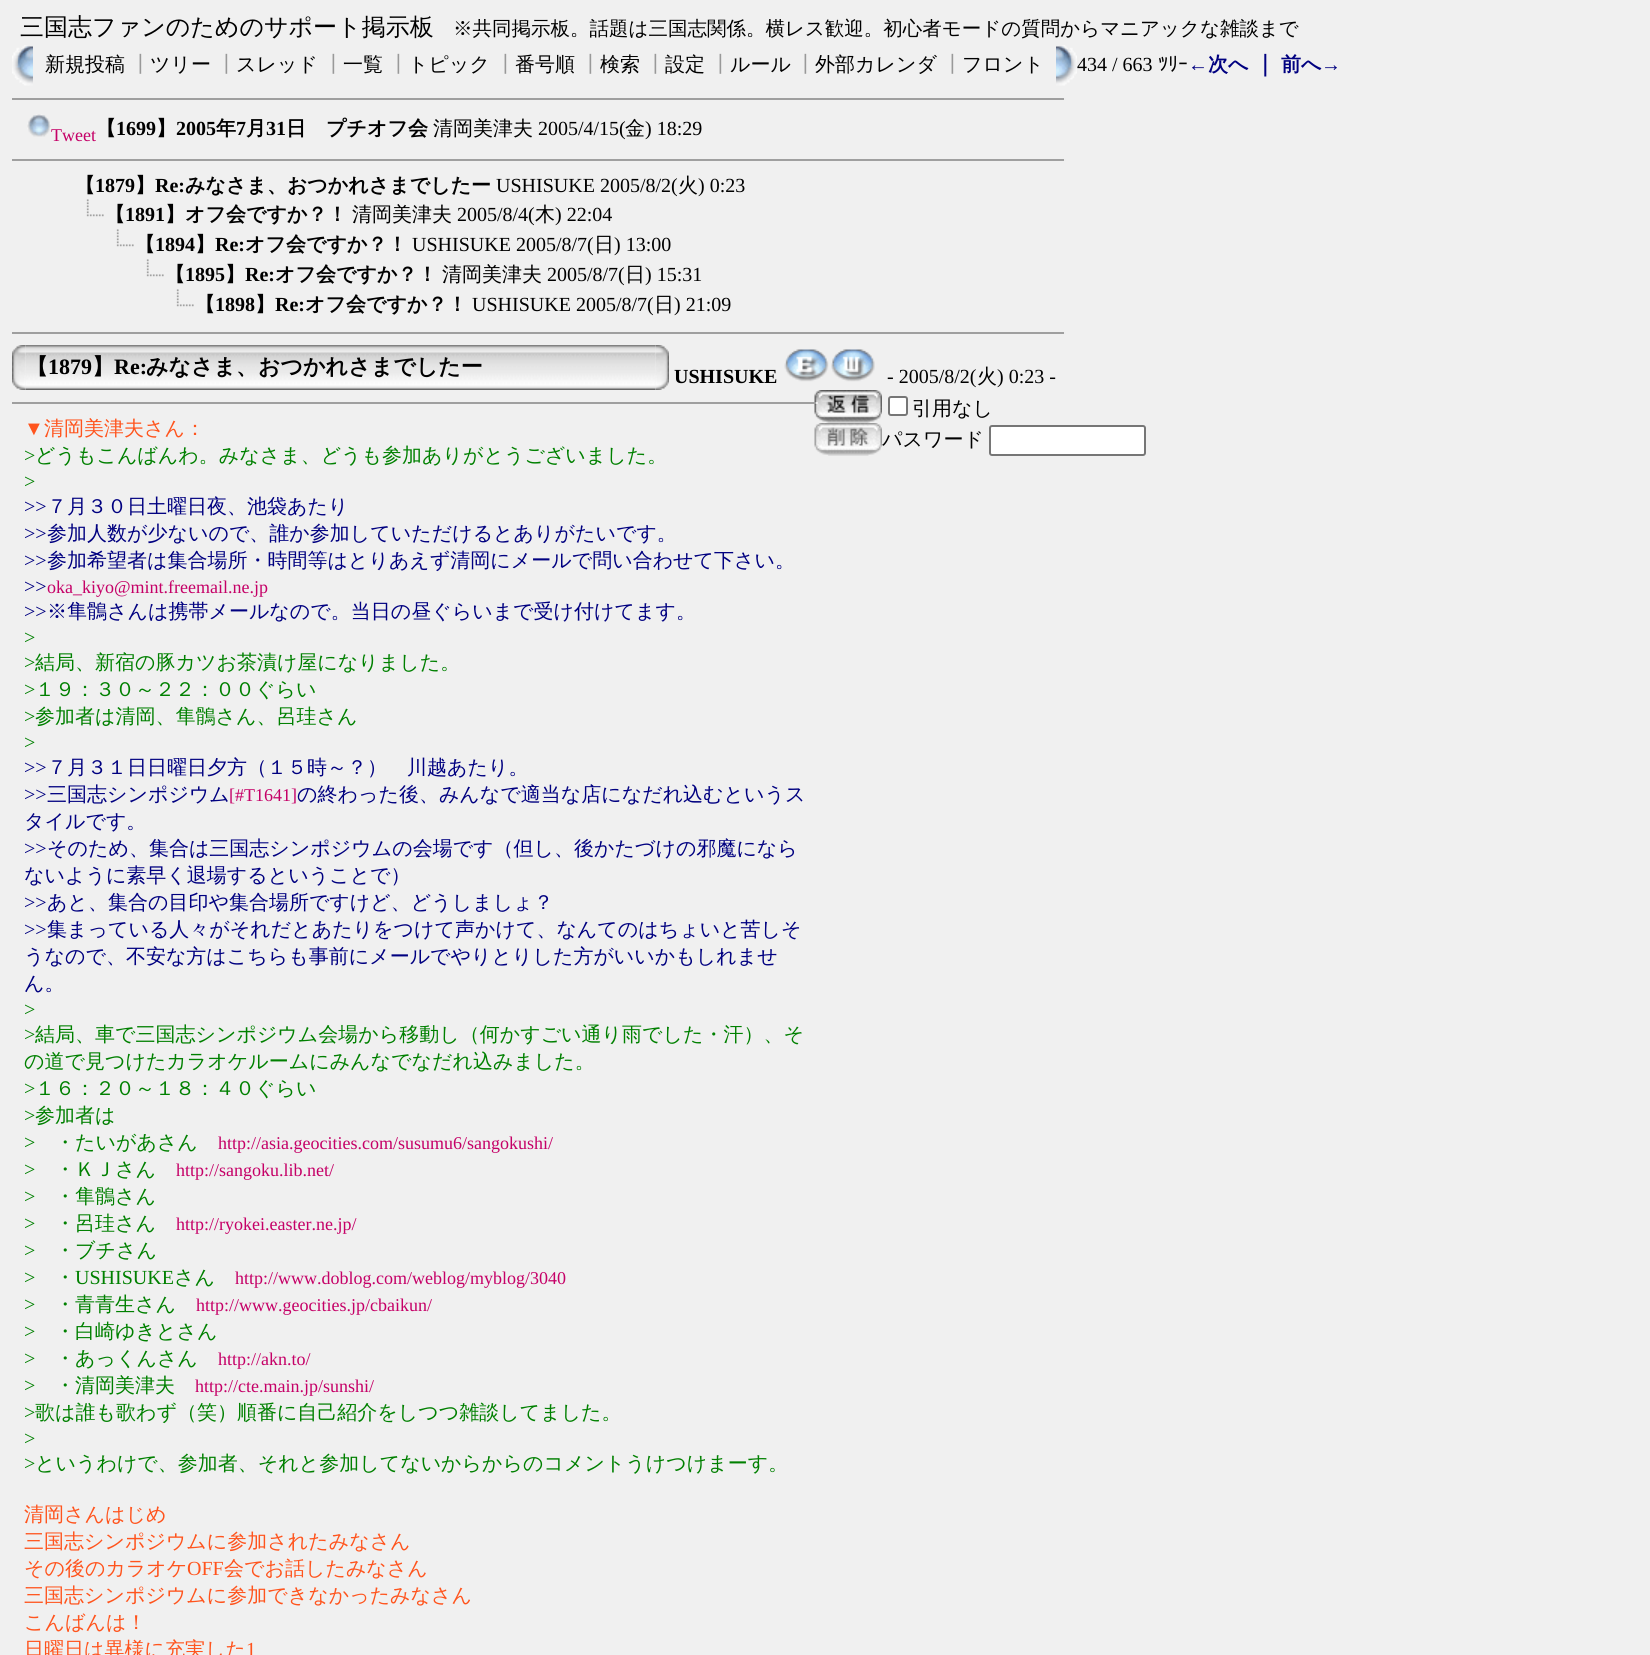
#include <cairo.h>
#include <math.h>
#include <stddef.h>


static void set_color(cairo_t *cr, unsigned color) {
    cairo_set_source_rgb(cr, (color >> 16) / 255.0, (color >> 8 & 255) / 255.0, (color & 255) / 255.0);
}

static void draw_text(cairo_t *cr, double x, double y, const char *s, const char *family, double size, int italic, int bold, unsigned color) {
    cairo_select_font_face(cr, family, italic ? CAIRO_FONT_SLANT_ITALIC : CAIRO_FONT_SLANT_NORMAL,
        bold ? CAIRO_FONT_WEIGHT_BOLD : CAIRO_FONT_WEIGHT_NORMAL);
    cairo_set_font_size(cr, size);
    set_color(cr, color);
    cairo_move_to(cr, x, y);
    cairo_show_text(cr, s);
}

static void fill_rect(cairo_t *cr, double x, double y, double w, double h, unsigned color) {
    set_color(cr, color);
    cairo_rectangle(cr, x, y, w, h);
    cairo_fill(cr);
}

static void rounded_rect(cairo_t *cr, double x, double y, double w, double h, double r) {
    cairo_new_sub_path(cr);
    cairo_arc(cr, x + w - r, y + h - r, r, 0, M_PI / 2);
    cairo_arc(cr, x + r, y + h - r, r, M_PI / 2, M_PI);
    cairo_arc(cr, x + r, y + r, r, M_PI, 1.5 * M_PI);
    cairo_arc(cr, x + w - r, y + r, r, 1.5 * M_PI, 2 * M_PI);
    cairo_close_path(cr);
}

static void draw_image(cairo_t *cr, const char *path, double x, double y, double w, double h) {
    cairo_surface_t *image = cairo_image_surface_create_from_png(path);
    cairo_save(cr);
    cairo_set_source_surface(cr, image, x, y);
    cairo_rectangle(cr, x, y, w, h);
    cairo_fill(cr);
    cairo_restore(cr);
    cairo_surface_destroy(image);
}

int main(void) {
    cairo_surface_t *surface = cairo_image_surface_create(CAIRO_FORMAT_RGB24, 1650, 1655);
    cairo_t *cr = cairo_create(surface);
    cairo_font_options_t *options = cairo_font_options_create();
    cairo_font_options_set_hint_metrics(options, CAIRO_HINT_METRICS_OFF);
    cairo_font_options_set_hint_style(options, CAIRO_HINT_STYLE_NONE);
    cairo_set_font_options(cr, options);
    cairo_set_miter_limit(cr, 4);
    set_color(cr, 0xF0F0F0);
    cairo_paint(cr);
    draw_text(cr, 20, 35, "三国志ファンのためのサポート掲示板", "WenQuanYi Zen Hei Medium", 24, 0, 0, 0x000000);
    draw_text(cr, 453, 35, "※共同掲示板。話題は三国志関係。横レス歓迎。初心者モードの質問からマニアックな雑談まで", "WenQuanYi Zen Hei Medium", 19.5, 0, 0, 0x000000);
    draw_image(cr, "assets/img1.png", 12, 45, 21, 41);
    draw_text(cr, 45, 71, "新規投稿", "WenQuanYi Zen Hei Medium", 20, 0, 0, 0x000000);
    draw_text(cr, 130, 71, "┃", "WenQuanYi Zen Hei Medium", 20, 0, 0, 0x999999);
    draw_text(cr, 150, 71, "ツリー", "WenQuanYi Zen Hei Medium", 20, 0, 0, 0x000000);
    draw_text(cr, 216, 71, "┃", "WenQuanYi Zen Hei Medium", 20, 0, 0, 0x999999);
    draw_text(cr, 236, 71, "スレッド", "WenQuanYi Zen Hei Medium", 20, 0, 0, 0x000000);
    draw_text(cr, 323, 71, "┃", "WenQuanYi Zen Hei Medium", 20, 0, 0, 0x999999);
    draw_text(cr, 343, 71, "一覧", "WenQuanYi Zen Hei Medium", 20, 0, 0, 0x000000);
    draw_text(cr, 388, 71, "┃", "WenQuanYi Zen Hei Medium", 20, 0, 0, 0x999999);
    draw_text(cr, 408, 71, "トピック", "WenQuanYi Zen Hei Medium", 20, 0, 0, 0x000000);
    draw_text(cr, 495, 71, "┃", "WenQuanYi Zen Hei Medium", 20, 0, 0, 0x999999);
    draw_text(cr, 515, 71, "番号順", "WenQuanYi Zen Hei Medium", 20, 0, 0, 0x000000);
    draw_text(cr, 580, 71, "┃", "WenQuanYi Zen Hei Medium", 20, 0, 0, 0x999999);
    draw_text(cr, 600, 71, "検索", "WenQuanYi Zen Hei Medium", 20, 0, 0, 0x000000);
    draw_text(cr, 645, 71, "┃", "WenQuanYi Zen Hei Medium", 20, 0, 0, 0x999999);
    draw_text(cr, 665, 71, "設定", "WenQuanYi Zen Hei Medium", 20, 0, 0, 0x000000);
    draw_text(cr, 710, 71, "┃", "WenQuanYi Zen Hei Medium", 20, 0, 0, 0x999999);
    draw_text(cr, 730, 71, "ルール", "WenQuanYi Zen Hei Medium", 20, 0, 0, 0x000000);
    draw_text(cr, 795, 71, "┃", "WenQuanYi Zen Hei Medium", 20, 0, 0, 0x999999);
    draw_text(cr, 815, 71, "外部カレンダ", "WenQuanYi Zen Hei Medium", 20, 0, 0, 0x000000);
    draw_text(cr, 942, 71, "┃", "WenQuanYi Zen Hei Medium", 20, 0, 0, 0x999999);
    draw_text(cr, 962, 71, "フロント", "WenQuanYi Zen Hei Medium", 20, 0, 0, 0x000000);
    draw_image(cr, "assets/img2.png", 1056, 45, 21, 41);
    draw_text(cr, 1077, 71, "434 / 663", "Liberation Serif", 20, 0, 0, 0x000000);
    draw_text(cr, 1158, 71, "ﾂﾘｰ", "IPAPGothic", 20, 0, 0, 0x000000);
    draw_text(cr, 1188, 71, "←", "Liberation Serif", 20, 0, 1, 0x000080);
    draw_text(cr, 1208, 71, "次へ", "WenQuanYi Zen Hei", 20, 0, 1, 0x000080);
    draw_text(cr, 1254, 71, "｜", "WenQuanYi Zen Hei", 22, 0, 1, 0x000080);
    draw_text(cr, 1281, 71, "前へ", "WenQuanYi Zen Hei", 20, 0, 1, 0x000080);
    draw_text(cr, 1321, 71, "→", "Liberation Serif", 20, 0, 1, 0x000080);
    fill_rect(cr, 12, 98, 1053, 2, 0x9F9F9F);
    fill_rect(cr, 1064, 98, 2, 2, 0xEEEEEE);
    draw_image(cr, "assets/img3.png", 27, 114, 24, 23);
    draw_text(cr, 51, 141, "Tweet", "Liberation Serif", 18, 0, 0, 0xC50067);
    draw_text(cr, 96, 135, "【", "WenQuanYi Zen Hei", 20, 0, 1, 0x000000);
    draw_text(cr, 116, 135, "1699", "Liberation Serif", 20, 0, 1, 0x000000);
    draw_text(cr, 156, 135, "】", "WenQuanYi Zen Hei", 20, 0, 1, 0x000000);
    draw_text(cr, 176, 135, "2005", "Liberation Serif", 20, 0, 1, 0x000000);
    draw_text(cr, 216, 135, "年", "WenQuanYi Zen Hei", 20, 0, 1, 0x000000);
    draw_text(cr, 236, 135, "7", "Liberation Serif", 20, 0, 1, 0x000000);
    draw_text(cr, 246, 135, "月", "WenQuanYi Zen Hei", 20, 0, 1, 0x000000);
    draw_text(cr, 266, 135, "31", "Liberation Serif", 20, 0, 1, 0x000000);
    draw_text(cr, 286, 135, "日　プチオフ会", "WenQuanYi Zen Hei", 20, 0, 1, 0x000000);
    draw_text(cr, 433, 135, "清岡美津夫", "WenQuanYi Zen Hei Medium", 20, 0, 0, 0x000000);
    draw_text(cr, 538, 135, "2005/4/15(", "Liberation Serif", 20, 0, 0, 0x000000);
    draw_text(cr, 625, 135, "金", "WenQuanYi Zen Hei Medium", 20, 0, 0, 0x000000);
    draw_text(cr, 645, 135, ") 18:29", "Liberation Serif", 20, 0, 0, 0x000000);
    fill_rect(cr, 12, 159, 1053, 2, 0x9F9F9F);
    fill_rect(cr, 1064, 159, 2, 2, 0xEEEEEE);
    draw_text(cr, 75, 192, "【", "WenQuanYi Zen Hei", 20, 0, 1, 0x000000);
    draw_text(cr, 95, 192, "1879", "Liberation Serif", 20, 0, 1, 0x000000);
    draw_text(cr, 135, 192, "】", "WenQuanYi Zen Hei", 20, 0, 1, 0x000000);
    draw_text(cr, 155, 192, "Re:", "Liberation Serif", 20, 0, 1, 0x000000);
    draw_text(cr, 185, 192, "みなさま、おつかれさまでしたー", "WenQuanYi Zen Hei", 20, 0, 1, 0x000000);
    draw_text(cr, 496, 192, "USHISUKE 2005/8/2(", "Liberation Serif", 20, 0, 0, 0x000000);
    draw_text(cr, 678, 192, "火", "WenQuanYi Zen Hei Medium", 20, 0, 0, 0x000000);
    draw_text(cr, 698, 192, ") 0:23", "Liberation Serif", 20, 0, 0, 0x000000);
    draw_image(cr, "assets/img4.png", 86, 199, 18, 18);
    draw_text(cr, 105, 221, "【", "WenQuanYi Zen Hei", 20, 0, 1, 0x000000);
    draw_text(cr, 125, 221, "1891", "Liberation Serif", 20, 0, 1, 0x000000);
    draw_text(cr, 165, 221, "】オフ会ですか？！", "WenQuanYi Zen Hei", 20, 0, 1, 0x000000);
    draw_text(cr, 352, 221, "清岡美津夫", "WenQuanYi Zen Hei Medium", 20, 0, 0, 0x000000);
    draw_text(cr, 457, 221, "2005/8/4(", "Liberation Serif", 20, 0, 0, 0x000000);
    draw_text(cr, 535, 221, "木", "WenQuanYi Zen Hei Medium", 20, 0, 0, 0x000000);
    draw_text(cr, 555, 221, ") 22:04", "Liberation Serif", 20, 0, 0, 0x000000);
    draw_image(cr, "assets/img4.png", 116, 229, 18, 18);
    draw_text(cr, 135, 251, "【", "WenQuanYi Zen Hei", 20, 0, 1, 0x000000);
    draw_text(cr, 155, 251, "1894", "Liberation Serif", 20, 0, 1, 0x000000);
    draw_text(cr, 195, 251, "】", "WenQuanYi Zen Hei", 20, 0, 1, 0x000000);
    draw_text(cr, 215, 251, "Re:", "Liberation Serif", 20, 0, 1, 0x000000);
    draw_text(cr, 245, 251, "オフ会ですか？！", "WenQuanYi Zen Hei", 20, 0, 1, 0x000000);
    draw_text(cr, 412, 251, "USHISUKE 2005/8/7(", "Liberation Serif", 20, 0, 0, 0x000000);
    draw_text(cr, 594, 251, "日", "WenQuanYi Zen Hei Medium", 20, 0, 0, 0x000000);
    draw_text(cr, 614, 251, ") 13:00", "Liberation Serif", 20, 0, 0, 0x000000);
    draw_image(cr, "assets/img4.png", 146, 259, 18, 18);
    draw_text(cr, 165, 281, "【", "WenQuanYi Zen Hei", 20, 0, 1, 0x000000);
    draw_text(cr, 185, 281, "1895", "Liberation Serif", 20, 0, 1, 0x000000);
    draw_text(cr, 225, 281, "】", "WenQuanYi Zen Hei", 20, 0, 1, 0x000000);
    draw_text(cr, 245, 281, "Re:", "Liberation Serif", 20, 0, 1, 0x000000);
    draw_text(cr, 275, 281, "オフ会ですか？！", "WenQuanYi Zen Hei", 20, 0, 1, 0x000000);
    draw_text(cr, 442, 281, "清岡美津夫", "WenQuanYi Zen Hei Medium", 20, 0, 0, 0x000000);
    draw_text(cr, 547, 281, "2005/8/7(", "Liberation Serif", 20, 0, 0, 0x000000);
    draw_text(cr, 625, 281, "日", "WenQuanYi Zen Hei Medium", 20, 0, 0, 0x000000);
    draw_text(cr, 645, 281, ") 15:31", "Liberation Serif", 20, 0, 0, 0x000000);
    draw_image(cr, "assets/img4.png", 176, 289, 18, 18);
    draw_text(cr, 195, 311, "【", "WenQuanYi Zen Hei", 20, 0, 1, 0x000000);
    draw_text(cr, 215, 311, "1898", "Liberation Serif", 20, 0, 1, 0x000000);
    draw_text(cr, 255, 311, "】", "WenQuanYi Zen Hei", 20, 0, 1, 0x000000);
    draw_text(cr, 275, 311, "Re:", "Liberation Serif", 20, 0, 1, 0x000000);
    draw_text(cr, 305, 311, "オフ会ですか？！", "WenQuanYi Zen Hei", 20, 0, 1, 0x000000);
    draw_text(cr, 472, 311, "USHISUKE 2005/8/7(", "Liberation Serif", 20, 0, 0, 0x000000);
    draw_text(cr, 654, 311, "日", "WenQuanYi Zen Hei Medium", 20, 0, 0, 0x000000);
    draw_text(cr, 674, 311, ") 21:09", "Liberation Serif", 20, 0, 0, 0x000000);
    fill_rect(cr, 12, 332, 1053, 2, 0x9F9F9F);
    fill_rect(cr, 1064, 332, 2, 2, 0xEEEEEE);
    draw_image(cr, "assets/img6.png", 25, 345, 631, 45);
    draw_image(cr, "assets/img5.png", 12, 345, 14, 45);
    draw_text(cr, 26, 374, "【", "WenQuanYi Zen Hei", 22, 0, 1, 0x000000);
    draw_text(cr, 48, 374, "1879", "Liberation Serif", 22, 0, 1, 0x000000);
    draw_text(cr, 92, 374, "】", "WenQuanYi Zen Hei", 22, 0, 1, 0x000000);
    draw_text(cr, 114, 374, "Re:", "Liberation Serif", 22, 0, 1, 0x000000);
    draw_text(cr, 146, 374, "みなさま、おつかれさまでしたー", "WenQuanYi Zen Hei", 22, 0, 1, 0x000000);
    draw_image(cr, "assets/img7.png", 655, 345, 14, 45);
    draw_text(cr, 674, 383, "USHISUKE", "Liberation Serif", 20, 0, 1, 0x000000);
    draw_image(cr, "assets/img8.png", 784, 349, 45, 33);
    draw_image(cr, "assets/img9.png", 831, 349, 44, 33);
    draw_text(cr, 887, 383, "- 2005/8/2(", "Liberation Serif", 20, 0, 0, 0x000000);
    draw_text(cr, 977, 383, "火", "WenQuanYi Zen Hei Medium", 20, 0, 0, 0x000000);
    draw_text(cr, 997, 383, ") 0:23 -", "Liberation Serif", 20, 0, 0, 0x000000);
    draw_text(cr, 24, 435, "▼", "Liberation Serif", 20, 0, 0, 0xFF541D);
    draw_text(cr, 44, 435, "清岡美津夫さん：", "WenQuanYi Zen Hei Medium", 20, 0, 0, 0xFF541D);
    draw_text(cr, 24, 462, ">", "Liberation Serif", 20, 0, 0, 0x008000);
    draw_text(cr, 35, 462, "どうもこんばんわ。みなさま、どうも参加ありがとうございました。", "WenQuanYi Zen Hei Medium", 20, 0, 0, 0x008000);
    draw_text(cr, 24, 488, ">", "Liberation Serif", 20, 0, 0, 0x008000);
    draw_text(cr, 24, 513, ">>", "Liberation Serif", 20, 0, 0, 0x000080);
    draw_text(cr, 47, 513, "７月３０日土曜日夜、池袋あたり", "WenQuanYi Zen Hei Medium", 20, 0, 0, 0x000080);
    draw_text(cr, 24, 540, ">>", "Liberation Serif", 20, 0, 0, 0x000080);
    draw_text(cr, 47, 540, "参加人数が少ないので、誰か参加していただけるとありがたいです。", "WenQuanYi Zen Hei Medium", 20, 0, 0, 0x000080);
    draw_text(cr, 24, 567, ">>", "Liberation Serif", 20, 0, 0, 0x000080);
    draw_text(cr, 47, 567, "参加希望者は集合場所・時間等はとりあえず清岡にメールで問い合わせて下さい。", "WenQuanYi Zen Hei Medium", 20, 0, 0, 0x000080);
    draw_text(cr, 24, 593, ">>", "Liberation Serif", 20, 0, 0, 0x000080);
    draw_text(cr, 47, 593, "oka_kiyo@mint.freemail.ne.jp", "Liberation Serif", 18, 0, 0, 0xC50067);
    draw_text(cr, 24, 618, ">>", "Liberation Serif", 20, 0, 0, 0x000080);
    draw_text(cr, 47, 618, "※隼鶻さんは携帯メールなので。当日の昼ぐらいまで受け付けてます。", "WenQuanYi Zen Hei Medium", 20, 0, 0, 0x000080);
    draw_text(cr, 24, 644, ">", "Liberation Serif", 20, 0, 0, 0x008000);
    draw_text(cr, 24, 669, ">", "Liberation Serif", 20, 0, 0, 0x008000);
    draw_text(cr, 35, 669, "結局、新宿の豚カツお茶漬け屋になりました。", "WenQuanYi Zen Hei Medium", 20, 0, 0, 0x008000);
    draw_text(cr, 24, 696, ">", "Liberation Serif", 20, 0, 0, 0x008000);
    draw_text(cr, 35, 696, "１９：３０～２２：００ぐらい", "WenQuanYi Zen Hei Medium", 20, 0, 0, 0x008000);
    draw_text(cr, 24, 723, ">", "Liberation Serif", 20, 0, 0, 0x008000);
    draw_text(cr, 35, 723, "参加者は清岡、隼鶻さん、呂珪さん", "WenQuanYi Zen Hei Medium", 20, 0, 0, 0x008000);
    draw_text(cr, 24, 749, ">", "Liberation Serif", 20, 0, 0, 0x008000);
    draw_text(cr, 24, 774, ">>", "Liberation Serif", 20, 0, 0, 0x000080);
    draw_text(cr, 47, 774, "７月３１日日曜日夕方（１５時～？）　川越あたり。", "WenQuanYi Zen Hei Medium", 20, 0, 0, 0x000080);
    draw_text(cr, 24, 801, ">>", "Liberation Serif", 20, 0, 0, 0x000080);
    draw_text(cr, 47, 801, "三国志シンポジウム", "WenQuanYi Zen Hei Medium", 20, 0, 0, 0x000080);
    draw_text(cr, 229, 801, "[#T1641]", "Liberation Serif", 18, 0, 0, 0xC50067);
    draw_text(cr, 297, 801, "の終わった後、みんなで適当な店になだれ込むというス", "WenQuanYi Zen Hei Medium", 20, 0, 0, 0x000080);
    draw_text(cr, 24, 828, "タイルです。", "WenQuanYi Zen Hei Medium", 20, 0, 0, 0x000080);
    draw_text(cr, 24, 855, ">>", "Liberation Serif", 20, 0, 0, 0x000080);
    draw_text(cr, 47, 855, "そのため、集合は三国志シンポジウムの会場です（但し、後かたづけの邪魔になら", "WenQuanYi Zen Hei Medium", 20, 0, 0, 0x000080);
    draw_text(cr, 24, 882, "ないように素早く退場するということで）", "WenQuanYi Zen Hei Medium", 20, 0, 0, 0x000080);
    draw_text(cr, 24, 909, ">>", "Liberation Serif", 20, 0, 0, 0x000080);
    draw_text(cr, 47, 909, "あと、集合の目印や集合場所ですけど、どうしましょ？", "WenQuanYi Zen Hei Medium", 20, 0, 0, 0x000080);
    draw_text(cr, 24, 936, ">>", "Liberation Serif", 20, 0, 0, 0x000080);
    draw_text(cr, 47, 936, "集まっている人々がそれだとあたりをつけて声かけて、なんてのはちょいと苦しそ", "WenQuanYi Zen Hei Medium", 20, 0, 0, 0x000080);
    draw_text(cr, 24, 963, "うなので、不安な方はこちらも事前にメールでやりとりした方がいいかもしれませ", "WenQuanYi Zen Hei Medium", 20, 0, 0, 0x000080);
    draw_text(cr, 24, 990, "ん。", "WenQuanYi Zen Hei Medium", 20, 0, 0, 0x000080);
    draw_text(cr, 24, 1016, ">", "Liberation Serif", 20, 0, 0, 0x008000);
    draw_text(cr, 24, 1041, ">", "Liberation Serif", 20, 0, 0, 0x008000);
    draw_text(cr, 35, 1041, "結局、車で三国志シンポジウム会場から移動し（何かすごい通り雨でした・汗）、そ", "WenQuanYi Zen Hei Medium", 20, 0, 0, 0x008000);
    draw_text(cr, 24, 1068, "の道で見つけたカラオケルームにみんなでなだれ込みました。", "WenQuanYi Zen Hei Medium", 20, 0, 0, 0x008000);
    draw_text(cr, 24, 1095, ">", "Liberation Serif", 20, 0, 0, 0x008000);
    draw_text(cr, 35, 1095, "１６：２０～１８：４０ぐらい", "WenQuanYi Zen Hei Medium", 20, 0, 0, 0x008000);
    draw_text(cr, 24, 1122, ">", "Liberation Serif", 20, 0, 0, 0x008000);
    draw_text(cr, 35, 1122, "参加者は", "WenQuanYi Zen Hei Medium", 20, 0, 0, 0x008000);
    draw_text(cr, 24, 1149, ">", "Liberation Serif", 20, 0, 0, 0x008000);
    draw_text(cr, 55, 1149, "・たいがあさん", "WenQuanYi Zen Hei Medium", 20, 0, 0, 0x008000);
    draw_text(cr, 218, 1149, "http://asia.geocities.com/susumu6/sangokushi/", "Liberation Serif", 18, 0, 0, 0xC50067);
    draw_text(cr, 24, 1176, ">", "Liberation Serif", 20, 0, 0, 0x008000);
    draw_text(cr, 55, 1176, "・ＫＪさん", "WenQuanYi Zen Hei Medium", 20, 0, 0, 0x008000);
    draw_text(cr, 176, 1176, "http://sangoku.lib.net/", "Liberation Serif", 18, 0, 0, 0xC50067);
    draw_text(cr, 24, 1203, ">", "Liberation Serif", 20, 0, 0, 0x008000);
    draw_text(cr, 55, 1203, "・隼鶻さん", "WenQuanYi Zen Hei Medium", 20, 0, 0, 0x008000);
    draw_text(cr, 24, 1230, ">", "Liberation Serif", 20, 0, 0, 0x008000);
    draw_text(cr, 55, 1230, "・呂珪さん", "WenQuanYi Zen Hei Medium", 20, 0, 0, 0x008000);
    draw_text(cr, 176, 1230, "http://ryokei.easter.ne.jp/", "Liberation Serif", 18, 0, 0, 0xC50067);
    draw_text(cr, 24, 1257, ">", "Liberation Serif", 20, 0, 0, 0x008000);
    draw_text(cr, 55, 1257, "・ブチさん", "WenQuanYi Zen Hei Medium", 20, 0, 0, 0x008000);
    draw_text(cr, 24, 1284, ">", "Liberation Serif", 20, 0, 0, 0x008000);
    draw_text(cr, 55, 1284, "・", "WenQuanYi Zen Hei Medium", 20, 0, 0, 0x008000);
    draw_text(cr, 75, 1284, "USHISUKE", "Liberation Serif", 20, 0, 0, 0x008000);
    draw_text(cr, 174, 1284, "さん", "WenQuanYi Zen Hei Medium", 20, 0, 0, 0x008000);
    draw_text(cr, 235, 1284, "http://www.doblog.com/weblog/myblog/3040", "Liberation Serif", 18, 0, 0, 0xC50067);
    draw_text(cr, 24, 1311, ">", "Liberation Serif", 20, 0, 0, 0x008000);
    draw_text(cr, 55, 1311, "・青青生さん", "WenQuanYi Zen Hei Medium", 20, 0, 0, 0x008000);
    draw_text(cr, 196, 1311, "http://www.geocities.jp/cbaikun/", "Liberation Serif", 18, 0, 0, 0xC50067);
    draw_text(cr, 24, 1338, ">", "Liberation Serif", 20, 0, 0, 0x008000);
    draw_text(cr, 55, 1338, "・白崎ゆきとさん", "WenQuanYi Zen Hei Medium", 20, 0, 0, 0x008000);
    draw_text(cr, 24, 1365, ">", "Liberation Serif", 20, 0, 0, 0x008000);
    draw_text(cr, 55, 1365, "・あっくんさん", "WenQuanYi Zen Hei Medium", 20, 0, 0, 0x008000);
    draw_text(cr, 218, 1365, "http://akn.to/", "Liberation Serif", 18, 0, 0, 0xC50067);
    draw_text(cr, 24, 1392, ">", "Liberation Serif", 20, 0, 0, 0x008000);
    draw_text(cr, 55, 1392, "・清岡美津夫", "WenQuanYi Zen Hei Medium", 20, 0, 0, 0x008000);
    draw_text(cr, 195, 1392, "http://cte.main.jp/sunshi/", "Liberation Serif", 18, 0, 0, 0xC50067);
    draw_text(cr, 24, 1419, ">", "Liberation Serif", 20, 0, 0, 0x008000);
    draw_text(cr, 35, 1419, "歌は誰も歌わず（笑）順番に自己紹介をしつつ雑談してました。", "WenQuanYi Zen Hei Medium", 20, 0, 0, 0x008000);
    draw_text(cr, 24, 1445, ">", "Liberation Serif", 20, 0, 0, 0x008000);
    draw_text(cr, 24, 1470, ">", "Liberation Serif", 20, 0, 0, 0x008000);
    draw_text(cr, 35, 1470, "というわけで、参加者、それと参加してないからからのコメントうけつけまーす。", "WenQuanYi Zen Hei Medium", 20, 0, 0, 0x008000);
    draw_text(cr, 24, 1521, "清岡さんはじめ", "WenQuanYi Zen Hei Medium", 20, 0, 0, 0xFF541D);
    draw_text(cr, 24, 1548, "三国志シンポジウムに参加されたみなさん", "WenQuanYi Zen Hei Medium", 20, 0, 0, 0xFF541D);
    draw_text(cr, 24, 1575, "その後のカラオケ", "WenQuanYi Zen Hei Medium", 20, 0, 0, 0xFF541D);
    draw_text(cr, 187, 1575, "OFF", "Liberation Serif", 20, 0, 0, 0xFF541D);
    draw_text(cr, 224, 1575, "会でお話したみなさん", "WenQuanYi Zen Hei Medium", 20, 0, 0, 0xFF541D);
    draw_text(cr, 24, 1602, "三国志シンポジウムに参加できなかったみなさん", "WenQuanYi Zen Hei Medium", 20, 0, 0, 0xFF541D);
    draw_text(cr, 24, 1629, "こんばんは！", "WenQuanYi Zen Hei Medium", 20, 0, 0, 0xFF541D);
    draw_text(cr, 24, 1656, "日曜日は異様に充実した", "WenQuanYi Zen Hei Medium", 20, 0, 0, 0xFF541D);
    draw_text(cr, 246, 1656, "1", "Liberation Serif", 20, 0, 0, 0xFF541D);
    draw_image(cr, "assets/img10.png", 814, 390, 68, 33);
    fill_rect(cr, 12, 402, 806, 2, 0x9F9F9F);
    fill_rect(cr, 816, 402, 2, 2, 0xEEEEEE);
    set_color(cr, 0xFFFFFF);
    rounded_rect(cr, 889, 397, 18, 18, 2);
    cairo_fill_preserve(cr);
    set_color(cr, 0x767676);
    cairo_stroke(cr);
    draw_text(cr, 912, 415, "引用なし", "WenQuanYi Zen Hei Medium", 20, 0, 0, 0x000000);
    draw_image(cr, "assets/img11.png", 814, 423, 68, 33);
    draw_text(cr, 882, 446, "パスワード", "WenQuanYi Zen Hei Medium", 20, 0, 0, 0x000000);
    set_color(cr, 0xFFFFFF);
    rounded_rect(cr, 990, 426, 155, 29, 2);
    cairo_fill_preserve(cr);
    set_color(cr, 0x767676);
    cairo_stroke(cr);
    cairo_surface_write_to_png(surface, "output.png");
    cairo_font_options_destroy(options);
    cairo_destroy(cr);
    cairo_surface_destroy(surface);
    return 0;
}
